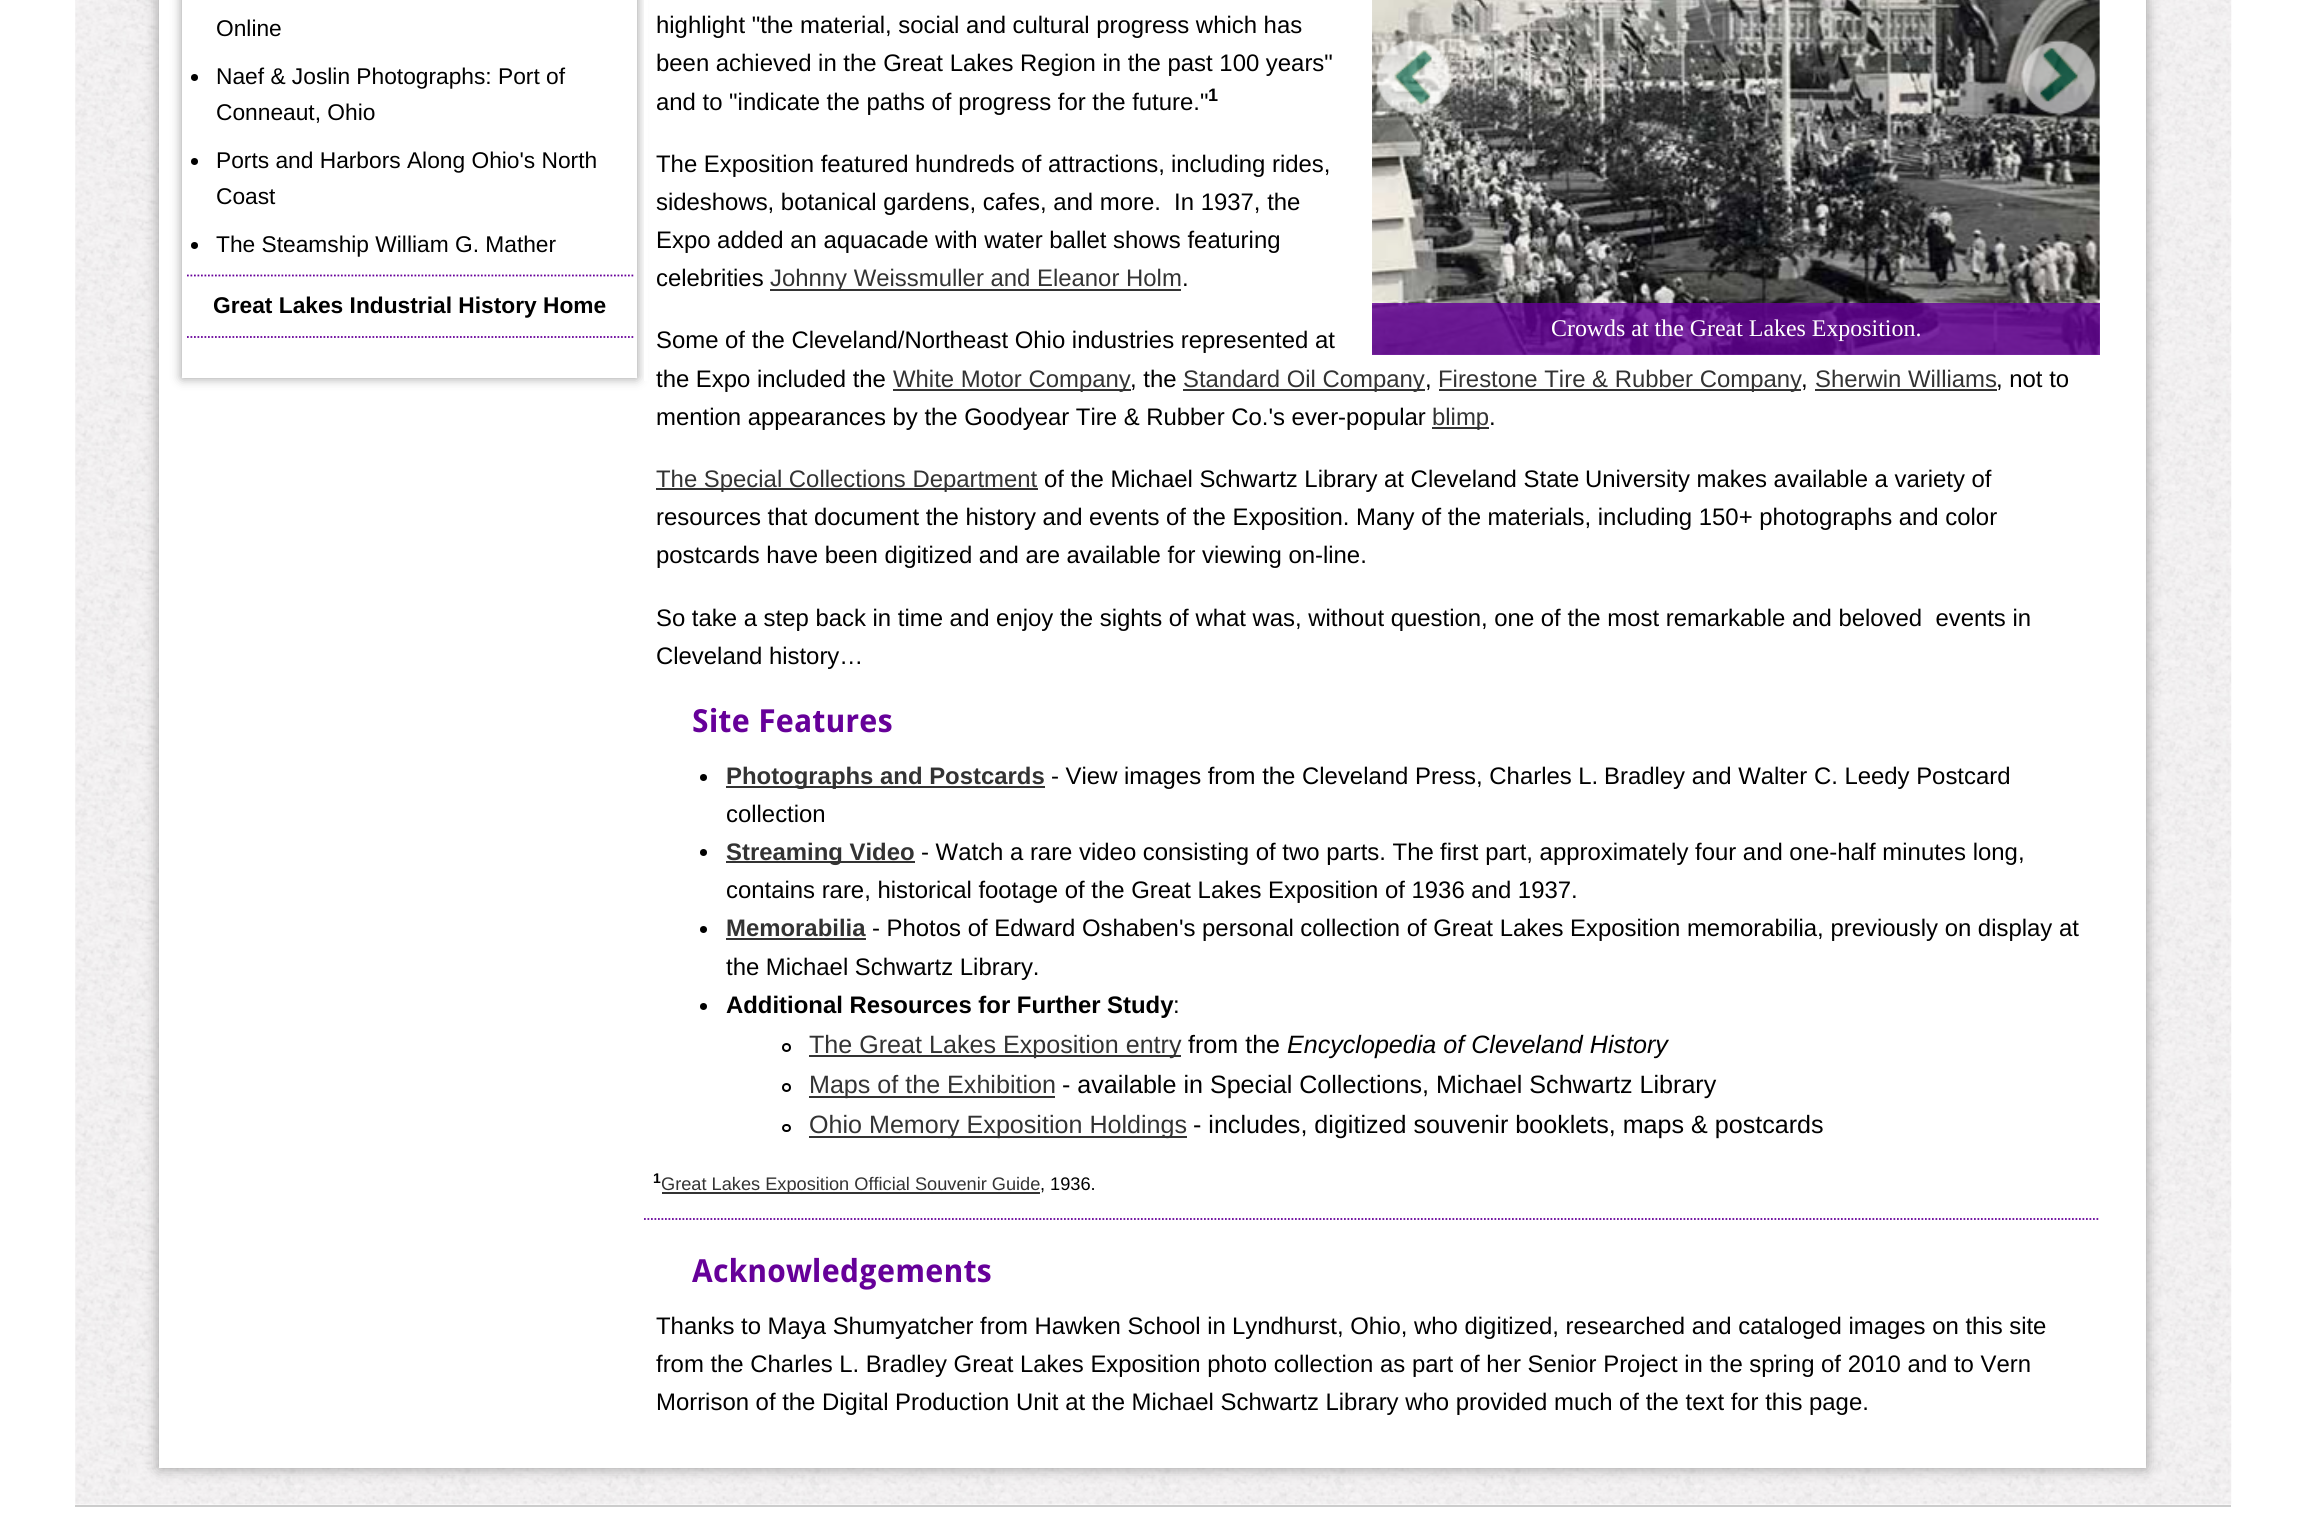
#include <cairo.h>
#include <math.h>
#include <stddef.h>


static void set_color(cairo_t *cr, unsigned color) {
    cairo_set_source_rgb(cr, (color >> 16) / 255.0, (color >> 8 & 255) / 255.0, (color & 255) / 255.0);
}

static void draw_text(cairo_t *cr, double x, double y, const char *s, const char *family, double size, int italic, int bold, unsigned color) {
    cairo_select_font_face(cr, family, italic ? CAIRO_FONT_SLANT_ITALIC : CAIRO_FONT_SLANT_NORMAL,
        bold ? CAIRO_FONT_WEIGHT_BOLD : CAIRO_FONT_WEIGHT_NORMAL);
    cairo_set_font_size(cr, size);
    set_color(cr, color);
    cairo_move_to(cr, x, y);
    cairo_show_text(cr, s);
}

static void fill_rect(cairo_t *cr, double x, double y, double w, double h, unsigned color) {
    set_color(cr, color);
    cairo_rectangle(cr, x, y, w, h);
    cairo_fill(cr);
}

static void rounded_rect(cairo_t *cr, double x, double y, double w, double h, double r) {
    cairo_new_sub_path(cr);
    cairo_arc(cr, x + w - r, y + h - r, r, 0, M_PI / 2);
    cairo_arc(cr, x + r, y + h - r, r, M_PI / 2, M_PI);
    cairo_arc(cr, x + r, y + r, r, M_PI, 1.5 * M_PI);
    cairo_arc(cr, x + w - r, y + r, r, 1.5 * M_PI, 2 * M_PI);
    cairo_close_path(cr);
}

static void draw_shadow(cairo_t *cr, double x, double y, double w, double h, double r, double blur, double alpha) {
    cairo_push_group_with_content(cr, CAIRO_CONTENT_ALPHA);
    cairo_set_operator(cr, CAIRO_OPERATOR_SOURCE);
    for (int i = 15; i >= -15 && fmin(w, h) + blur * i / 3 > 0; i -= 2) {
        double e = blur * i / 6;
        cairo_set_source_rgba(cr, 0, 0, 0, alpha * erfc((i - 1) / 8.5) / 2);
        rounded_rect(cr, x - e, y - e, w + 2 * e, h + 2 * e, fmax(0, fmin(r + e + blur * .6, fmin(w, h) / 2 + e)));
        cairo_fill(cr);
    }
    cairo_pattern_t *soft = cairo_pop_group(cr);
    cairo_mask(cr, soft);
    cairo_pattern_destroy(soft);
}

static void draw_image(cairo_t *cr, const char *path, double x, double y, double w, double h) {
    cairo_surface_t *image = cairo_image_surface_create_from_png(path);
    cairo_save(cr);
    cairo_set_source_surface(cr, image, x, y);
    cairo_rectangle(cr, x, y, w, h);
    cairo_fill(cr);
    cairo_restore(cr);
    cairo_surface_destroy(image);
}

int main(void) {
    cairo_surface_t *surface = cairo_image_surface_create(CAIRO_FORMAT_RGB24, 2304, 1513);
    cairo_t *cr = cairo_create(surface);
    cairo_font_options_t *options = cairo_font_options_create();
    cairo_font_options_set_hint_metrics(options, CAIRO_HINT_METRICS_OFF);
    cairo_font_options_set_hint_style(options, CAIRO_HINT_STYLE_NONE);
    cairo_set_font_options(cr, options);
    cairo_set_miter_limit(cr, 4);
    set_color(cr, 0xFFFFFF);
    cairo_paint(cr);
    draw_image(cr, "assets/img1.png", 75, 0, 2157, 1505);
    set_color(cr, 0x999999);
    draw_shadow(cr, 159, -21, 1987, 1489, 0, 7, 1);
    fill_rect(cr, 159, 0, 1987, 1468, 0xFFFFFF);
    cairo_save(cr);
    cairo_set_fill_rule(cr, CAIRO_FILL_RULE_EVEN_ODD);
    cairo_new_path(cr);
    cairo_move_to(cr, 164, 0);
    cairo_line_to(cr, 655, 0);
    cairo_line_to(cr, 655, 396);
    cairo_line_to(cr, 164, 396);
    cairo_close_path(cr);
    cairo_move_to(cr, 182, -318);
    cairo_line_to(cr, 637, -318);
    cairo_line_to(cr, 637, 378);
    cairo_line_to(cr, 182, 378);
    cairo_close_path(cr);
    cairo_clip(cr);
    set_color(cr, 0x999999);
    draw_shadow(cr, 182, -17, 455, 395, 0, 5.5, 1);
    cairo_restore(cr);
    cairo_new_path(cr);
    cairo_move_to(cr, 187, 275.5);
    cairo_line_to(cr, 633.5, 275.5);
    set_color(cr, 0x660099);
    cairo_set_line_width(cr, 1.8);
    cairo_set_dash(cr, (double[]){1.75, 1.75}, 2, 0);
    cairo_stroke(cr);
    draw_text(cr, 216, 36, "Online", "Liberation Sans", 22.75, 0, 0, 0x000000);
    cairo_new_path(cr);
    cairo_arc(cr, 194.5, 77.5, 3.5, 0, 2 * M_PI);
    cairo_fill(cr);
    draw_text(cr, 216, 84, "Naef & Joslin Photographs: Port of", "Liberation Sans", 22.75, 0, 0, 0x000000);
    draw_text(cr, 216, 120, "Conneaut, Ohio", "Liberation Sans", 22.75, 0, 0, 0x000000);
    cairo_new_path(cr);
    cairo_arc(cr, 194.5, 161.5, 3.5, 0, 2 * M_PI);
    cairo_fill(cr);
    draw_text(cr, 216, 168, "Ports and Harbors Along Ohio's North", "Liberation Sans", 22.75, 0, 0, 0x000000);
    draw_text(cr, 216, 204, "Coast", "Liberation Sans", 22.75, 0, 0, 0x000000);
    cairo_new_path(cr);
    cairo_arc(cr, 194.5, 245.5, 3.5, 0, 2 * M_PI);
    cairo_fill(cr);
    draw_text(cr, 216, 252, "The Steamship William G. Mather", "Liberation Sans", 22.75, 0, 0, 0x000000);
    cairo_new_path(cr);
    cairo_move_to(cr, 187, 337);
    cairo_line_to(cr, 633.5, 337);
    set_color(cr, 0x660099);
    cairo_stroke(cr);
    draw_text(cr, 213, 313, "Great Lakes Industrial History Home", "Liberation Sans", 22.75, 0, 1, 0x000000);
    fill_rect(cr, 644, 0, 4, 381, 0xFFFFFF);
    draw_text(cr, 656, 33, "highlight \"the material, social and cultural progress which has", "Liberation Sans", 23.9, 0, 0, 0x000000);
    draw_text(cr, 656, 71, "been achieved in the Great Lakes Region in the past 100 years\"", "Liberation Sans", 23.9, 0, 0, 0x000000);
    draw_text(cr, 656, 110, "and to \"indicate the paths of progress for the future.\"", "Liberation Sans", 23.9, 0, 0, 0x000000);
    draw_text(cr, 1208, 101, "1", "Liberation Sans", 18, 0, 1, 0x000000);
    draw_text(cr, 656, 172, "The Exposition featured hundreds of attractions,", "Liberation Sans", 23.9, 0, 0, 0x000000);
    draw_text(cr, 1171, 172, "including rides,", "Liberation Sans", 23.9, 0, 0, 0x000000);
    draw_text(cr, 656, 210, "sideshows, botanical gardens, cafes, and more.  In 1937, the", "Liberation Sans", 23.9, 0, 0, 0x000000);
    draw_text(cr, 656, 248, "Expo added an aquacade with water ballet shows featuring", "Liberation Sans", 23.9, 0, 0, 0x000000);
    draw_text(cr, 656, 286, "celebrities", "Liberation Sans", 23.9, 0, 0, 0x000000);
    fill_rect(cr, 770, 289, 411, 2, 0x333333);
    draw_text(cr, 770, 286, "Johnny Weissmuller and Eleanor Holm", "Liberation Sans", 23.9, 0, 0, 0x333333);
    draw_text(cr, 1182, 286, ".", "Liberation Sans", 23.9, 0, 0, 0x000000);
    draw_image(cr, "assets/img4.png", 1372, 0, 728, 355);
    draw_image(cr, "assets/img2.png", 1375, 39, 76, 77);
    draw_image(cr, "assets/img3.png", 2021, 39, 76, 77);
    cairo_set_source_rgba(cr, 0.4, 0, 0.6, 0.8);
    cairo_rectangle(cr, 1372, 303, 728, 52);
    cairo_fill(cr);
    draw_text(cr, 1551, 336, "Crowds at the Great Lakes Exposition.", "Liberation Serif", 23.9, 0, 0, 0xFFFFFF);
    draw_text(cr, 656, 348, "Some of the Cleveland/Northeast Ohio industries represented at", "Liberation Sans", 23.9, 0, 0, 0x000000);
    draw_text(cr, 656, 387, "the Expo included the", "Liberation Sans", 23.9, 0, 0, 0x000000);
    fill_rect(cr, 893, 389, 238, 2, 0x333333);
    draw_text(cr, 893, 387, "White Motor Company", "Liberation Sans", 23.9, 0, 0, 0x333333);
    draw_text(cr, 1130, 387, ", the", "Liberation Sans", 23.9, 0, 0, 0x000000);
    fill_rect(cr, 1183, 389, 242, 2, 0x333333);
    draw_text(cr, 1183, 387, "Standard Oil Company", "Liberation Sans", 23.9, 0, 0, 0x333333);
    draw_text(cr, 1425, 387, ",", "Liberation Sans", 23.9, 0, 0, 0x000000);
    fill_rect(cr, 1439, 389, 362, 2, 0x333333);
    draw_text(cr, 1438, 387, "Firestone Tire & Rubber Company", "Liberation Sans", 23.9, 0, 0, 0x333333);
    draw_text(cr, 1801, 387, ",", "Liberation Sans", 23.9, 0, 0, 0x000000);
    draw_text(cr, 1815, 387, "Sherwin Williams", "Liberation Sans", 23.9, 0, 0, 0x333333);
    fill_rect(cr, 1815, 389, 182, 2, 0x333333);
    draw_text(cr, 1996, 387, ", not to", "Liberation Sans", 23.9, 0, 0, 0x000000);
    draw_text(cr, 656, 425, "mention appearances by the Goodyear Tire & Rubber Co.'s ever-popular", "Liberation Sans", 23.9, 0, 0, 0x000000);
    fill_rect(cr, 1432, 427, 57, 2, 0x333333);
    draw_text(cr, 1432, 425, "blimp", "Liberation Sans", 23.9, 0, 0, 0x333333);
    draw_text(cr, 1489, 425, ".", "Liberation Sans", 23.9, 0, 0, 0x000000);
    fill_rect(cr, 656, 488, 382, 2, 0x333333);
    draw_text(cr, 656, 487, "The Special Collections Department", "Liberation Sans", 23.9, 0, 0, 0x333333);
    draw_text(cr, 1044, 487, "of the Michael Schwartz Library at Cleveland State", "Liberation Sans", 23.9, 0, 0, 0x000000);
    draw_text(cr, 1585, 487, "University makes available a variety of", "Liberation Sans", 23.9, 0, 0, 0x000000);
    draw_text(cr, 656, 525, "resources that document the history and", "Liberation Sans", 23.9, 0, 0, 0x000000);
    draw_text(cr, 1089, 525, "events of the Exposition. Many of the materials, including 150+ photographs and color", "Liberation Sans", 23.9, 0, 0, 0x000000);
    draw_text(cr, 656, 563, "postcards have been digitized and are available for viewing on-line.", "Liberation Sans", 23.9, 0, 0, 0x000000);
    draw_text(cr, 656, 626, "So take a step back in time and enjoy the sights of what was, without question, one of the most remarkable and beloved  events in", "Liberation Sans", 23.9, 0, 0, 0x000000);
    draw_text(cr, 656, 664, "Cleveland history…", "Liberation Sans", 23.9, 0, 0, 0x000000);
    draw_text(cr, 692, 732, "Site Features", "Droid Sans", 31.75, 0, 1, 0x660099);
    set_color(cr, 0x000000);
    cairo_new_path(cr);
    cairo_arc(cr, 703.5, 777.5, 3.5, 0, 2 * M_PI);
    cairo_fill(cr);
    fill_rect(cr, 726, 786, 319, 2, 0x333333);
    draw_text(cr, 726, 784, "Photographs and Postcards", "Liberation Sans", 23.9, 0, 1, 0x333333);
    draw_text(cr, 1051, 784, "- View images from the Cleveland Press, Charles L.", "Liberation Sans", 23.9, 0, 0, 0x000000);
    draw_text(cr, 1604, 784, "Bradley and Walter C. Leedy Postcard", "Liberation Sans", 23.9, 0, 0, 0x000000);
    draw_text(cr, 726, 822, "collection", "Liberation Sans", 23.9, 0, 0, 0x000000);
    cairo_new_path(cr);
    cairo_arc(cr, 703.5, 852.5, 3.5, 0, 2 * M_PI);
    cairo_fill(cr);
    fill_rect(cr, 726, 861, 189, 2, 0x333333);
    draw_text(cr, 726, 860, "Streaming Video", "Liberation Sans", 23.9, 0, 1, 0x333333);
    draw_text(cr, 921, 860, "- Watch a rare video consisting of two parts. The", "Liberation Sans", 23.9, 0, 0, 0x000000);
    draw_text(cr, 1440, 860, "first part, approximately four and one-half minutes long,", "Liberation Sans", 23.9, 0, 0, 0x000000);
    draw_text(cr, 726, 898, "contains rare, historical footage of the Great Lakes Exposition of 1936 and 1937.", "Liberation Sans", 23.9, 0, 0, 0x000000);
    cairo_new_path(cr);
    cairo_arc(cr, 703.5, 929.5, 3.5, 0, 2 * M_PI);
    cairo_fill(cr);
    draw_text(cr, 726, 936, "Memorabilia", "Liberation Sans", 23.9, 0, 1, 0x333333);
    fill_rect(cr, 726, 938, 140, 2, 0x333333);
    draw_text(cr, 872, 936, "- Photos of Edward Oshaben's personal collection of Great Lakes Exposition memorabilia, previously on display at", "Liberation Sans", 23.9, 0, 0, 0x000000);
    draw_text(cr, 726, 975, "the Michael Schwartz Library.", "Liberation Sans", 23.9, 0, 0, 0x000000);
    cairo_new_path(cr);
    cairo_arc(cr, 703.5, 1006.5, 3.5, 0, 2 * M_PI);
    cairo_fill(cr);
    draw_text(cr, 726, 1013, "Additional Resources for Further Study", "Liberation Sans", 23.9, 0, 1, 0x000000);
    draw_text(cr, 1173, 1013, ":", "Liberation Sans", 23.9, 0, 0, 0x000000);
    cairo_new_path(cr);
    cairo_arc(cr, 786.5, 1047.5, 3.5, 0, 2 * M_PI);
    cairo_set_line_width(cr, 2);
    cairo_set_dash(cr, NULL, 0, 0);
    cairo_stroke(cr);
    fill_rect(cr, 809, 1055, 372, 2, 0x333333);
    draw_text(cr, 809, 1053, "The Great Lakes Exposition entry", "Liberation Sans", 25.1, 0, 0, 0x333333);
    draw_text(cr, 1188, 1053, "from the", "Liberation Sans", 25.1, 0, 0, 0x000000);
    draw_text(cr, 1287, 1053, "Encyclopedia of Cleveland History", "Liberation Sans", 25.1, 1, 0, 0x000000);
    cairo_new_path(cr);
    cairo_arc(cr, 786.5, 1087.5, 3.5, 0, 2 * M_PI);
    cairo_stroke(cr);
    fill_rect(cr, 809, 1096, 246, 2, 0x333333);
    draw_text(cr, 809, 1093, "Maps of the Exhibition", "Liberation Sans", 25.1, 0, 0, 0x333333);
    draw_text(cr, 1062, 1093, "- available in Special Collections, Michael Schwartz Library", "Liberation Sans", 25.1, 0, 0, 0x000000);
    rounded_rect(cr, 783, 1125, 7, 6, 3);
    cairo_stroke(cr);
    fill_rect(cr, 809, 1136, 378, 2, 0x333333);
    draw_text(cr, 809, 1133, "Ohio Memory Exposition Holdings", "Liberation Sans", 25.1, 0, 0, 0x333333);
    draw_text(cr, 1193, 1133, "- includes, digitized souvenir booklets, maps & postcards", "Liberation Sans", 25.1, 0, 0, 0x000000);
    draw_text(cr, 653, 1183, "1", "Liberation Sans", 14, 0, 1, 0x000000);
    fill_rect(cr, 662, 1192, 378, 2, 0x333333);
    draw_text(cr, 661, 1190, "Great Lakes Exposition Official Souvenir Guide", "Liberation Sans", 18.2, 0, 0, 0x333333);
    draw_text(cr, 1040, 1190, ", 1936.", "Liberation Sans", 18.2, 0, 0, 0x000000);
    cairo_new_path(cr);
    cairo_move_to(cr, 644, 1219);
    cairo_line_to(cr, 2100, 1219);
    set_color(cr, 0x660099);
    cairo_set_line_width(cr, 1.8);
    cairo_set_dash(cr, (double[]){1.75, 1.75}, 2, 0);
    cairo_stroke(cr);
    draw_text(cr, 692, 1282, "Acknowledgements", "Droid Sans", 31.75, 0, 1, 0x660099);
    draw_text(cr, 656, 1334, "Thanks to Maya Shumyatcher from Hawken School in", "Liberation Sans", 23.9, 0, 0, 0x000000);
    draw_text(cr, 1232, 1334, "Lyndhurst, Ohio, who digitized, researched and cataloged images on this site", "Liberation Sans", 23.9, 0, 0, 0x000000);
    draw_text(cr, 656, 1372, "from the Charles L. Bradley Great Lakes Exposition photo collection as part of her Senior Project in the spring of 2010 and to Vern", "Liberation Sans", 23.9, 0, 0, 0x000000);
    draw_text(cr, 656, 1410, "Morrison of the Digital Production Unit at the Michael Schwartz Library who provided much of the text for this page.", "Liberation Sans", 23.9, 0, 0, 0x000000);
    fill_rect(cr, 75, 1505, 2156, 2, 0xCCCCCC);
    cairo_surface_write_to_png(surface, "output.png");
    cairo_font_options_destroy(options);
    cairo_destroy(cr);
    cairo_surface_destroy(surface);
    return 0;
}
